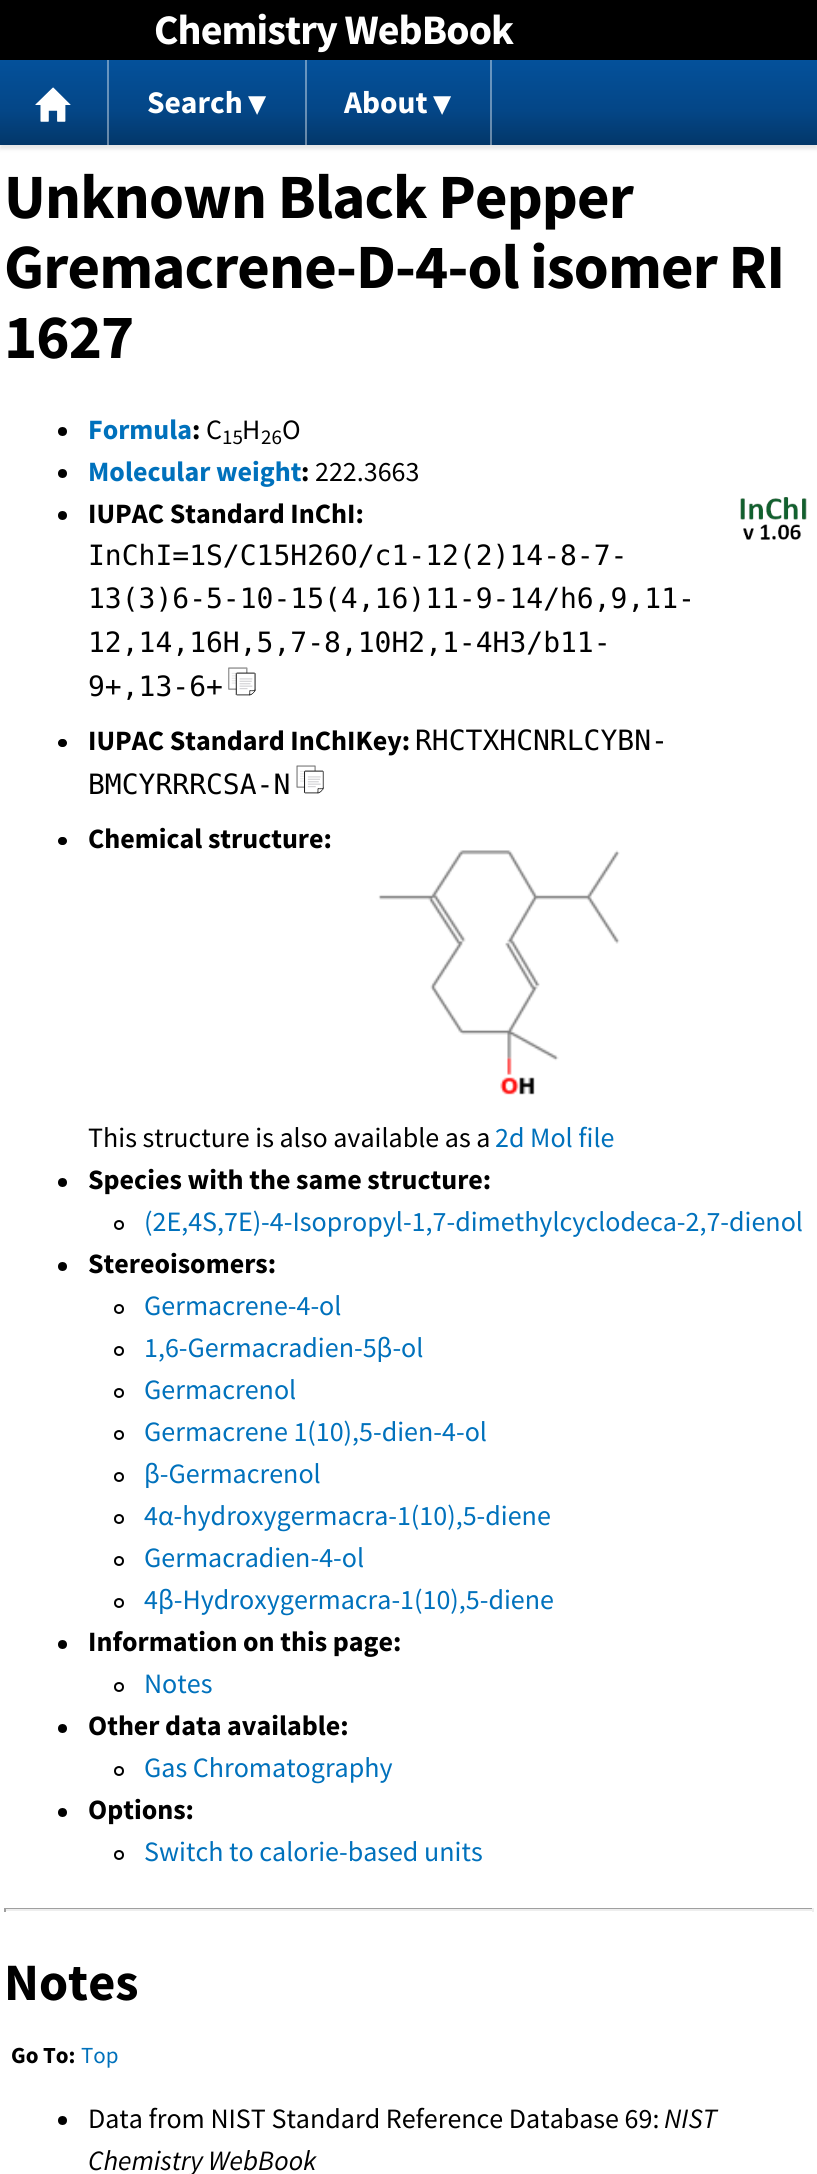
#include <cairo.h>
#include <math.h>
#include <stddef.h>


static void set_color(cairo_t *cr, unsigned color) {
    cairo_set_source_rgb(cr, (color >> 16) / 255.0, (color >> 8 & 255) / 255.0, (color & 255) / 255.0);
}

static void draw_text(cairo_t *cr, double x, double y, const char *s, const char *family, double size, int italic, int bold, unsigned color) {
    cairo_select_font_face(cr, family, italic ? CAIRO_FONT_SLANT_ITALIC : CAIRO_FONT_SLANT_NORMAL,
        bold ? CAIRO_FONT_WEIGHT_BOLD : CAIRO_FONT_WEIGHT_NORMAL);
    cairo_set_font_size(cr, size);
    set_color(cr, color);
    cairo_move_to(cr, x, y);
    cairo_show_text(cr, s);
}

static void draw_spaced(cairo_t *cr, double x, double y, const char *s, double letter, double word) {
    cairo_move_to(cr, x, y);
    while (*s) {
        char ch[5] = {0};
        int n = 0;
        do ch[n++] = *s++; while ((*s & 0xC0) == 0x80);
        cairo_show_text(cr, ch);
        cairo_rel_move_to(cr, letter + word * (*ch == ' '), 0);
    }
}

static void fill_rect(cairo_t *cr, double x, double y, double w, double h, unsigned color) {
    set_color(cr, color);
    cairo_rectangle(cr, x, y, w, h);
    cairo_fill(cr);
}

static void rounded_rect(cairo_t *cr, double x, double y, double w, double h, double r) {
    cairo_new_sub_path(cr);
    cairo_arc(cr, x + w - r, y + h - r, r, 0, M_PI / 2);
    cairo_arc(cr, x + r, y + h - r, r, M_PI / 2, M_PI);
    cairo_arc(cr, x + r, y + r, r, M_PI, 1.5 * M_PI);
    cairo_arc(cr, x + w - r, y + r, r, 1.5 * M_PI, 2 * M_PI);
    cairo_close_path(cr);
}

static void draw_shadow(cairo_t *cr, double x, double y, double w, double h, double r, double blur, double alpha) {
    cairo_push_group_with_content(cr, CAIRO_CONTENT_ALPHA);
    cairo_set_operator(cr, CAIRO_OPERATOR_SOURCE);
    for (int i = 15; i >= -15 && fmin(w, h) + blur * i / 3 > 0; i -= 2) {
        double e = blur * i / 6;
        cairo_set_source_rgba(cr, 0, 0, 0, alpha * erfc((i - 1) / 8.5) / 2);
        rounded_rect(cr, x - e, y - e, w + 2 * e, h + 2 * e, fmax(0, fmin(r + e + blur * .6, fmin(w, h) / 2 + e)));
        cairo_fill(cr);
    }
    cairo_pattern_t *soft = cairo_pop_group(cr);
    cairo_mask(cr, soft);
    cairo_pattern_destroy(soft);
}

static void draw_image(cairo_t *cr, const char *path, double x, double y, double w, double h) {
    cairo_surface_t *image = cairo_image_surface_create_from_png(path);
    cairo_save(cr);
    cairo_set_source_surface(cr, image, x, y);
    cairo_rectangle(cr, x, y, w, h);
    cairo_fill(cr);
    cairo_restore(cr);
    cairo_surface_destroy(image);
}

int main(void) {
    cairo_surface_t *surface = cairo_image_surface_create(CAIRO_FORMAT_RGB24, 817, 2174);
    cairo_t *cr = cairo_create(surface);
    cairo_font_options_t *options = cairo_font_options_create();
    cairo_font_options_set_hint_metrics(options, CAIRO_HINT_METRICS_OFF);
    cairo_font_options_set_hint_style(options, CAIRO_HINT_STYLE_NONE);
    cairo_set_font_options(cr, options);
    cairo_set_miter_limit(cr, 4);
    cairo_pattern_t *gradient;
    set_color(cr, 0xFFFFFF);
    cairo_paint(cr);
    set_color(cr, 0x000000);
    draw_shadow(cr, 0, 63, 817, 86, 0, 2, 0.1);
    fill_rect(cr, 0, 0, 817, 60, 0x000000);
    cairo_select_font_face(cr, "Source Sans Pro", CAIRO_FONT_SLANT_NORMAL, CAIRO_FONT_WEIGHT_BOLD);
    cairo_set_font_size(cr, 42);
    set_color(cr, 0xFFFFFF);
    draw_spaced(cr, 154, 44, "Chemistry WebBook", -0.9, 0);
    gradient = cairo_pattern_create_linear(409, 59, 409, 145);
    cairo_pattern_add_color_stop_rgba(gradient, 0, 0.016, 0.318, 0.608, 1);
    cairo_pattern_add_color_stop_rgba(gradient, 0.6, 0.016, 0.275, 0.529, 1);
    cairo_pattern_add_color_stop_rgba(gradient, 1, 0.012, 0.216, 0.412, 1);
    cairo_set_source(cr, gradient);
    cairo_pattern_destroy(gradient);
    cairo_rectangle(cr, 0, 60, 817, 85);
    cairo_fill(cr);
    gradient = cairo_pattern_create_linear(409, 59, 409, 145);
    cairo_pattern_add_color_stop_rgba(gradient, 0, 0.408, 0.592, 0.765, 1);
    cairo_pattern_add_color_stop_rgba(gradient, 0.6, 0.408, 0.565, 0.718, 1);
    cairo_pattern_add_color_stop_rgba(gradient, 1, 0.408, 0.529, 0.647, 1);
    cairo_set_source(cr, gradient);
    cairo_pattern_destroy(gradient);
    cairo_rectangle(cr, 490, 60, 2, 85);
    cairo_fill(cr);
    cairo_rectangle(cr, 305, 60, 2, 85);
    cairo_fill(cr);
    cairo_rectangle(cr, 107, 60, 2, 85);
    cairo_fill(cr);
    draw_image(cr, "assets/img1.png", 35, 87, 36, 35);
    draw_text(cr, 147, 113, "Search", "Source Sans Pro", 31.5, 0, 1, 0xFFFFFF);
    draw_text(cr, 247, 113, "▼", "Source Sans Pro", 23, 0, 1, 0xFFFFFF);
    draw_text(cr, 344, 113, "About", "Source Sans Pro", 31.5, 0, 1, 0xFFFFFF);
    draw_text(cr, 432, 113, "▼", "Source Sans Pro", 23, 0, 1, 0xFFFFFF);
    cairo_set_font_size(cr, 63);
    set_color(cr, 0x000000);
    draw_spaced(cr, 4, 218, "Unknown Black Pepper", -0.9, 0);
    draw_spaced(cr, 4, 288, "Gremacrene-D-4-ol isomer RI", -0.9, 0);
    draw_spaced(cr, 4, 358, "1627", -0.9, 0);
    cairo_new_path(cr);
    cairo_arc(cr, 62.5, 431.5, 4.5, 0, 2 * M_PI);
    cairo_fill(cr);
    draw_text(cr, 88, 439, "Formula", "Source Sans Pro", 28, 0, 1, 0x0071BC);
    draw_text(cr, 192, 439, ":", "Source Sans Pro", 28, 0, 1, 0x000000);
    draw_text(cr, 206, 439, "C", "Source Sans Pro", 28, 0, 0, 0x000000);
    draw_text(cr, 222, 444, "15", "Source Sans Pro", 21, 0, 0, 0x000000);
    draw_text(cr, 242, 439, "H", "Source Sans Pro", 28, 0, 0, 0x000000);
    draw_text(cr, 261, 444, "26", "Source Sans Pro", 21, 0, 0, 0x000000);
    draw_text(cr, 282, 439, "O", "Source Sans Pro", 28, 0, 0, 0x000000);
    cairo_new_path(cr);
    cairo_arc(cr, 62.5, 473.5, 4.5, 0, 2 * M_PI);
    cairo_fill(cr);
    draw_text(cr, 88, 481, "Molecular weight", "Source Sans Pro", 28, 0, 1, 0x0071BC);
    draw_text(cr, 301, 481, ":", "Source Sans Pro", 28, 0, 1, 0x000000);
    draw_text(cr, 315, 481, "222.3663", "Source Sans Pro", 28, 0, 0, 0x000000);
    cairo_new_path(cr);
    cairo_arc(cr, 62.5, 515.5, 4.5, 0, 2 * M_PI);
    cairo_fill(cr);
    draw_text(cr, 88, 523, "IUPAC Standard InChI:", "Source Sans Pro", 28, 0, 1, 0x000000);
    draw_text(cr, 88, 565, "InChI=1S/C15H26O/c1-12(2)14-8-7-", "DejaVu Sans Mono", 28, 0, 0, 0x000000);
    draw_text(cr, 88, 608, "13(3)6-5-10-15(4,16)11-9-14/h6,9,11-", "DejaVu Sans Mono", 28, 0, 0, 0x000000);
    draw_text(cr, 88, 652, "12,14,16H,5,7-8,10H2,1-4H3/b11-", "DejaVu Sans Mono", 28, 0, 0, 0x000000);
    draw_text(cr, 88, 696, "9+,13-6+", "DejaVu Sans Mono", 28, 0, 0, 0x000000);
    draw_image(cr, "assets/img2.png", 228, 667, 28, 29);
    draw_image(cr, "assets/img3.png", 740, 497, 67, 43);
    rounded_rect(cr, 58, 739, 9, 8, 4);
    cairo_fill(cr);
    draw_text(cr, 88, 750, "IUPAC Standard InChIKey:", "Source Sans Pro", 28, 0, 1, 0x000000);
    draw_text(cr, 415, 750, "RHCTXHCNRLCYBN-", "DejaVu Sans Mono", 28, 0, 0, 0x000000);
    draw_text(cr, 88, 794, "BMCYRRRCSA-N", "DejaVu Sans Mono", 28, 0, 0, 0x000000);
    draw_image(cr, "assets/img4.png", 296, 765, 28, 29);
    rounded_rect(cr, 58, 837, 9, 8, 4);
    cairo_fill(cr);
    draw_text(cr, 88, 848, "Chemical structure:", "Source Sans Pro", 28, 0, 1, 0x000000);
    draw_image(cr, "assets/img5.png", 378, 850, 242, 245);
    draw_text(cr, 88, 1147, "This structure is also available as a", "Source Sans Pro", 28, 0, 0, 0x000000);
    draw_text(cr, 495, 1147, "2d Mol file", "Source Sans Pro", 28, 0, 0, 0x0071BC);
    set_color(cr, 0x000000);
    cairo_new_path(cr);
    cairo_arc(cr, 62.5, 1182.5, 4.5, 0, 2 * M_PI);
    cairo_fill(cr);
    draw_text(cr, 88, 1189, "Species with the same structure:", "Source Sans Pro", 28, 0, 1, 0x000000);
    cairo_new_path(cr);
    cairo_arc(cr, 119, 1225, 4, 0, 2 * M_PI);
    cairo_stroke(cr);
    draw_text(cr, 144, 1231, "(2E,4S,7E)-4-Isopropyl-1,7-dimethylcyclodeca-2,7-dienol", "Source Sans Pro", 28, 0, 0, 0x0071BC);
    set_color(cr, 0x000000);
    cairo_new_path(cr);
    cairo_arc(cr, 62.5, 1266.5, 4.5, 0, 2 * M_PI);
    cairo_fill(cr);
    draw_text(cr, 88, 1273, "Stereoisomers:", "Source Sans Pro", 28, 0, 1, 0x000000);
    cairo_new_path(cr);
    cairo_arc(cr, 119, 1309, 4, 0, 2 * M_PI);
    cairo_stroke(cr);
    draw_text(cr, 144, 1315, "Germacrene-4-ol", "Source Sans Pro", 28, 0, 0, 0x0071BC);
    cairo_new_path(cr);
    cairo_arc(cr, 119, 1351, 4, 0, 2 * M_PI);
    set_color(cr, 0x000000);
    cairo_stroke(cr);
    draw_text(cr, 144, 1357, "1,6-Germacradien-5β-ol", "Source Sans Pro", 28, 0, 0, 0x0071BC);
    cairo_new_path(cr);
    cairo_arc(cr, 119, 1393, 4, 0, 2 * M_PI);
    set_color(cr, 0x000000);
    cairo_stroke(cr);
    draw_text(cr, 144, 1399, "Germacrenol", "Source Sans Pro", 28, 0, 0, 0x0071BC);
    cairo_new_path(cr);
    cairo_arc(cr, 119, 1435, 4, 0, 2 * M_PI);
    set_color(cr, 0x000000);
    cairo_stroke(cr);
    draw_text(cr, 144, 1441, "Germacrene 1(10),5-dien-4-ol", "Source Sans Pro", 28, 0, 0, 0x0071BC);
    cairo_new_path(cr);
    cairo_arc(cr, 119, 1477, 4, 0, 2 * M_PI);
    set_color(cr, 0x000000);
    cairo_stroke(cr);
    draw_text(cr, 144, 1483, "β-Germacrenol", "Source Sans Pro", 28, 0, 0, 0x0071BC);
    cairo_new_path(cr);
    cairo_arc(cr, 119, 1519, 4, 0, 2 * M_PI);
    set_color(cr, 0x000000);
    cairo_stroke(cr);
    draw_text(cr, 144, 1525, "4α-hydroxygermacra-1(10),5-diene", "Source Sans Pro", 28, 0, 0, 0x0071BC);
    cairo_new_path(cr);
    cairo_arc(cr, 119, 1561, 4, 0, 2 * M_PI);
    set_color(cr, 0x000000);
    cairo_stroke(cr);
    draw_text(cr, 144, 1567, "Germacradien-4-ol", "Source Sans Pro", 28, 0, 0, 0x0071BC);
    cairo_new_path(cr);
    cairo_arc(cr, 119, 1603, 4, 0, 2 * M_PI);
    set_color(cr, 0x000000);
    cairo_stroke(cr);
    draw_text(cr, 144, 1609, "4β-Hydroxygermacra-1(10),5-diene", "Source Sans Pro", 28, 0, 0, 0x0071BC);
    set_color(cr, 0x000000);
    cairo_new_path(cr);
    cairo_arc(cr, 62.5, 1644.5, 4.5, 0, 2 * M_PI);
    cairo_fill(cr);
    draw_text(cr, 88, 1651, "Information on this page:", "Source Sans Pro", 28, 0, 1, 0x000000);
    cairo_new_path(cr);
    cairo_arc(cr, 119, 1687, 4, 0, 2 * M_PI);
    cairo_stroke(cr);
    draw_text(cr, 144, 1693, "Notes", "Source Sans Pro", 28, 0, 0, 0x0071BC);
    set_color(cr, 0x000000);
    cairo_new_path(cr);
    cairo_arc(cr, 62.5, 1728.5, 4.5, 0, 2 * M_PI);
    cairo_fill(cr);
    draw_text(cr, 88, 1735, "Other data available:", "Source Sans Pro", 28, 0, 1, 0x000000);
    cairo_new_path(cr);
    cairo_arc(cr, 119, 1771, 4, 0, 2 * M_PI);
    cairo_stroke(cr);
    draw_text(cr, 144, 1777, "Gas Chromatography", "Source Sans Pro", 28, 0, 0, 0x0071BC);
    set_color(cr, 0x000000);
    cairo_new_path(cr);
    cairo_arc(cr, 62.5, 1812.5, 4.5, 0, 2 * M_PI);
    cairo_fill(cr);
    draw_text(cr, 88, 1819, "Options:", "Source Sans Pro", 28, 0, 1, 0x000000);
    cairo_new_path(cr);
    cairo_arc(cr, 119, 1855, 4, 0, 2 * M_PI);
    cairo_stroke(cr);
    draw_text(cr, 144, 1861, "Switch to calorie-based units", "Source Sans Pro", 28, 0, 0, 0x0071BC);
    fill_rect(cr, 4, 1908, 810, 1, 0x9F9F9F);
    fill_rect(cr, 812, 1908, 2, 4, 0xEEEEEE);
    fill_rect(cr, 4, 1909, 810, 2, 0xEEEEEE);
    fill_rect(cr, 4, 1908, 2, 4, 0x9F9F9F);
    draw_text(cr, 4, 2000, "Notes", "Source Sans Pro", 52.5, 0, 1, 0x000000);
    draw_text(cr, 11, 2063, "Go To:", "Source Sans Pro", 23, 0, 1, 0x000000);
    draw_text(cr, 81, 2063, "Top", "Source Sans Pro", 23, 0, 0, 0x0071BC);
    set_color(cr, 0x000000);
    cairo_new_path(cr);
    cairo_arc(cr, 62.5, 2120.5, 4.5, 0, 2 * M_PI);
    cairo_fill(cr);
    draw_text(cr, 88, 2128, "Data from NIST Standard Reference Database 69:", "Source Sans Pro", 28, 0, 0, 0x000000);
    draw_text(cr, 664, 2128, "NIST", "Source Sans Pro", 28, 1, 0, 0x000000);
    draw_text(cr, 88, 2170, "Chemistry WebBook", "Source Sans Pro", 28, 1, 0, 0x000000);
    cairo_surface_write_to_png(surface, "output.png");
    cairo_font_options_destroy(options);
    cairo_destroy(cr);
    cairo_surface_destroy(surface);
    return 0;
}
